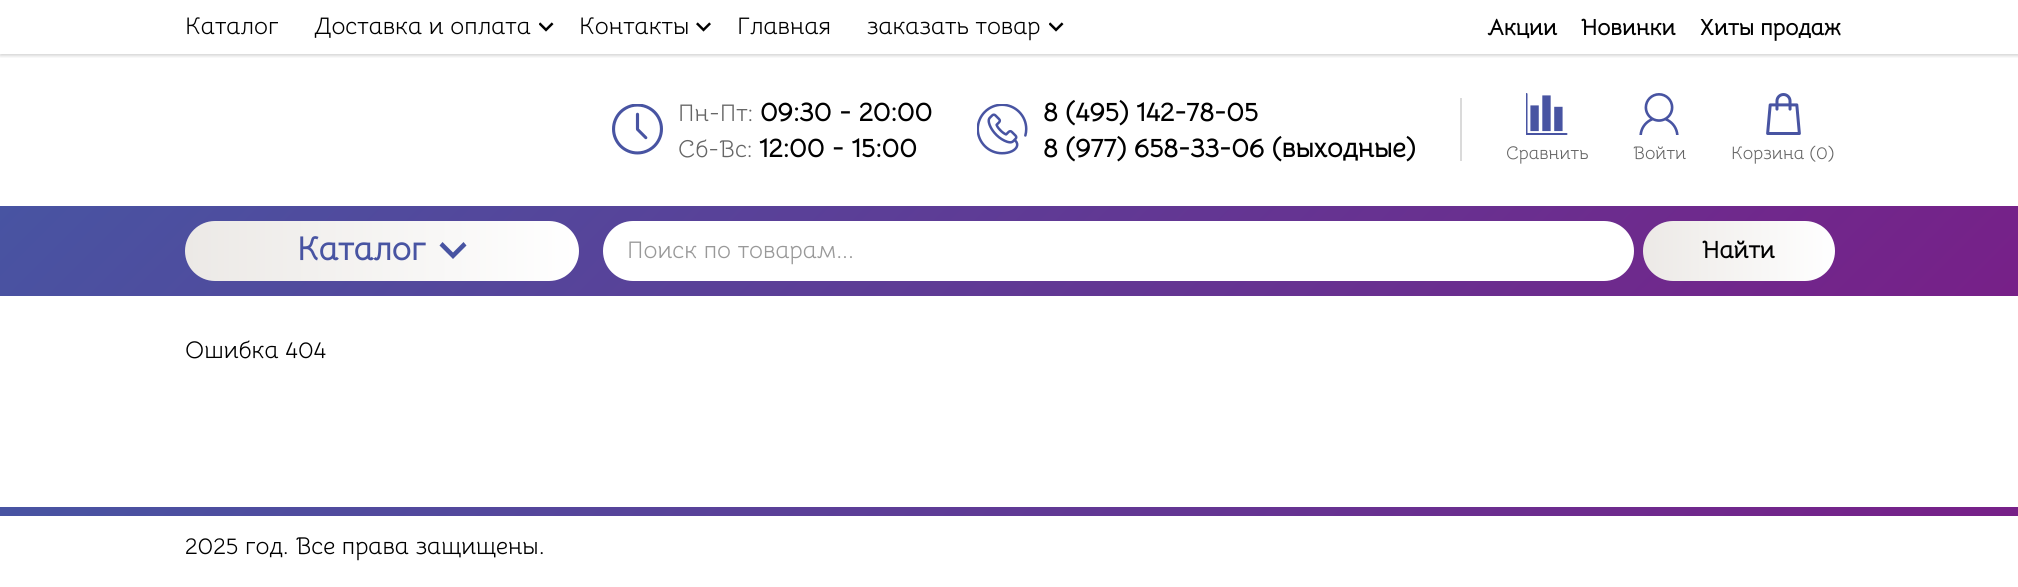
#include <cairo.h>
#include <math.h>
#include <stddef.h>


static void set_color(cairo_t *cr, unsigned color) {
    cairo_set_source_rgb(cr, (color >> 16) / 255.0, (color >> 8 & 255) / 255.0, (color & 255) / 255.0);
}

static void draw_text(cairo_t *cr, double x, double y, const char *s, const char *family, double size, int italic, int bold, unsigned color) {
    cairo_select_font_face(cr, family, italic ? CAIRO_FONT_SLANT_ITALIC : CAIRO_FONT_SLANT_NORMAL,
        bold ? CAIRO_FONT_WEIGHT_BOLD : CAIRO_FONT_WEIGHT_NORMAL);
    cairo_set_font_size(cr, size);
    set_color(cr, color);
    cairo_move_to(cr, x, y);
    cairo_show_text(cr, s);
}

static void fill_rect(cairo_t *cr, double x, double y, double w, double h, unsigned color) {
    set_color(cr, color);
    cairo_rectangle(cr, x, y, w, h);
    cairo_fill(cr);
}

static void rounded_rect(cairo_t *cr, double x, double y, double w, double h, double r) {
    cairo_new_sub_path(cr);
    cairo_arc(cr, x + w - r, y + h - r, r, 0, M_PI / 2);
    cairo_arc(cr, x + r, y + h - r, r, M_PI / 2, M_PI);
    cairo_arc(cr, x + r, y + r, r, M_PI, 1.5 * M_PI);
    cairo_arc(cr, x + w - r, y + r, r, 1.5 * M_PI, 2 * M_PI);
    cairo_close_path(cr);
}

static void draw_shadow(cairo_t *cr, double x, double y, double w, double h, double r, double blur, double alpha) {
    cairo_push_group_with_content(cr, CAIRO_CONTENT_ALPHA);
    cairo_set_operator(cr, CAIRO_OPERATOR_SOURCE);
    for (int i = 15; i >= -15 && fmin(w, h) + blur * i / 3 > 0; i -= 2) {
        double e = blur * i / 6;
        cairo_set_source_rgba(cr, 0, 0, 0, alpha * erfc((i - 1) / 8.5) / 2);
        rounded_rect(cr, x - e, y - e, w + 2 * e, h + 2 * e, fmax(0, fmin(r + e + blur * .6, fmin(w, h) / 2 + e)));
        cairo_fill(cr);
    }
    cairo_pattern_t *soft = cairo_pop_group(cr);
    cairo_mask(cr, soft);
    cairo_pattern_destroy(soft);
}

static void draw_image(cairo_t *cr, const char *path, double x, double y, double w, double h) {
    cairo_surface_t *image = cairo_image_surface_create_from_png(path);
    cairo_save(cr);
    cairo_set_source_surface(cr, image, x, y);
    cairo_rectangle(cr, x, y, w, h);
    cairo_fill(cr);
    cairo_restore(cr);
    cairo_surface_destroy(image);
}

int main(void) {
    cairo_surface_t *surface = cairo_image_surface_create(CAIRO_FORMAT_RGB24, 2018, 587);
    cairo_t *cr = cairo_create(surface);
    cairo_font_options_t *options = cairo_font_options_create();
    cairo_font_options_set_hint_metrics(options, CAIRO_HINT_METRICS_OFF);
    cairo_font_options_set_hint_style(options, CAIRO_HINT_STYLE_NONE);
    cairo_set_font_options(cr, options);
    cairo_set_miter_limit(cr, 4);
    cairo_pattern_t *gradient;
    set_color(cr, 0xFFFFFF);
    cairo_paint(cr);
    cairo_save(cr);
    cairo_rectangle(cr, 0, 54, 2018, 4);
    cairo_clip(cr);
    set_color(cr, 0x000000);
    draw_shadow(cr, 0, 2, 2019, 54, 0, 1.5, 0.16);
    cairo_restore(cr);
    draw_text(cr, 185, 34, "Каталог", "Bellota", 24, 0, 0, 0x000000);
    draw_text(cr, 314, 34, "Доставка и оплата", "Bellota", 24, 0, 0, 0x000000);
    draw_image(cr, "assets/img1.png", 539, 22, 15, 10);
    draw_text(cr, 579, 34, "Контакты", "Bellota", 24, 0, 0, 0x000000);
    draw_image(cr, "assets/img2.png", 696, 22, 15, 10);
    draw_text(cr, 737, 34, "Главная", "Bellota", 24, 0, 0, 0x000000);
    draw_text(cr, 867, 34, "заказать товар", "Bellota", 24, 0, 0, 0x000000);
    draw_image(cr, "assets/img1.png", 1049, 22, 15, 10);
    draw_text(cr, 1487, 35, "Акции", "Bellota", 22.5, 0, 1, 0x000000);
    draw_text(cr, 1581, 35, "Новинки", "Bellota", 22.5, 0, 1, 0x000000);
    draw_text(cr, 1700, 35, "Хиты продаж", "Bellota", 22.5, 0, 1, 0x000000);
    draw_image(cr, "assets/img3.png", 612, 104, 51, 51);
    draw_text(cr, 678, 121, "Пн-Пт:", "Bellota", 24, 0, 0, 0x666666);
    draw_text(cr, 760, 121, "09:30 - 20:00", "Bellota", 27, 0, 1, 0x000000);
    draw_text(cr, 678, 157, "Сб-Вс:", "Bellota", 24, 0, 0, 0x666666);
    draw_text(cr, 759, 157, "12:00 - 15:00", "Bellota", 27, 0, 1, 0x000000);
    draw_image(cr, "assets/img4.png", 977, 104, 51, 51);
    draw_text(cr, 1043, 121, "8 (495) 142-78-05", "Bellota", 27, 0, 1, 0x000000);
    draw_text(cr, 1043, 157, "8 (977) 658-33-06 (выходные)", "Bellota", 27, 0, 1, 0x000000);
    fill_rect(cr, 1460, 98, 2, 63, 0xDADADA);
    draw_image(cr, "assets/img5.png", 1526, 93, 42, 42);
    draw_text(cr, 1506, 159, "Сравнить", "Bellota", 18, 0, 0, 0x666666);
    draw_image(cr, "assets/img6.png", 1639, 93, 40, 42);
    draw_text(cr, 1633, 159, "Войти", "Bellota", 18, 0, 0, 0x666666);
    draw_image(cr, "assets/img7.png", 1766, 93, 35, 42);
    draw_text(cr, 1731, 159, "Корзина (0)", "Bellota", 18, 0, 0, 0x666666);
    gradient = cairo_pattern_create_linear(482, -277, 1537, 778);
    cairo_pattern_add_color_stop_rgba(gradient, 0, 0.282, 0.329, 0.635, 1);
    cairo_pattern_add_color_stop_rgba(gradient, 1, 0.467, 0.125, 0.533, 1);
    cairo_set_source(cr, gradient);
    cairo_pattern_destroy(gradient);
    cairo_rectangle(cr, 0, 206, 2018, 90);
    cairo_fill(cr);
    gradient = cairo_pattern_create_linear(185, 251, 579, 251);
    cairo_pattern_add_color_stop_rgba(gradient, 0, 0.925, 0.914, 0.902, 1);
    cairo_pattern_add_color_stop_rgba(gradient, 1, 1, 1, 1, 1);
    cairo_set_source(cr, gradient);
    cairo_pattern_destroy(gradient);
    rounded_rect(cr, 185, 221, 394, 60, 30);
    cairo_fill(cr);
    draw_text(cr, 297, 260, "Каталог", "Bellota", 33, 0, 1, 0x4854A2);
    cairo_new_path(cr);
    cairo_move_to(cr, 466.5, 245.5);
    cairo_line_to(cr, 463.5, 242);
    cairo_line_to(cr, 453, 252.5);
    cairo_line_to(cr, 442.5, 242);
    cairo_line_to(cr, 439.5, 245.5);
    cairo_line_to(cr, 453, 259);
    cairo_fill(cr);
    set_color(cr, 0xFFFFFF);
    rounded_rect(cr, 603, 221, 1031, 60, 30);
    cairo_fill(cr);
    draw_text(cr, 627, 258, "Поиск по товарам...", "Bellota", 24, 0, 0, 0x999999);
    gradient = cairo_pattern_create_linear(1643, 251, 1835, 251);
    cairo_pattern_add_color_stop_rgba(gradient, 0, 0.925, 0.914, 0.902, 1);
    cairo_pattern_add_color_stop_rgba(gradient, 1, 1, 1, 1, 1);
    cairo_set_source(cr, gradient);
    cairo_pattern_destroy(gradient);
    rounded_rect(cr, 1643, 221, 192, 60, 30);
    cairo_fill(cr);
    draw_text(cr, 1702, 258, "Найти", "Bellota", 24, 0, 1, 0x000000);
    draw_text(cr, 185, 358, "Ошибка 404", "Bellota", 24, 0, 0, 0x000000);
    gradient = cairo_pattern_create_linear(502, 4.5, 1517, 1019);
    cairo_pattern_add_color_stop_rgba(gradient, 0, 0.282, 0.329, 0.635, 1);
    cairo_pattern_add_color_stop_rgba(gradient, 1, 0.467, 0.125, 0.533, 1);
    cairo_set_source(cr, gradient);
    cairo_pattern_destroy(gradient);
    cairo_rectangle(cr, 0, 507, 2018, 9);
    cairo_fill(cr);
    draw_text(cr, 185, 554, "2025 год. Все права защищены.", "Bellota", 24, 0, 0, 0x000000);
    cairo_surface_write_to_png(surface, "output.png");
    cairo_font_options_destroy(options);
    cairo_destroy(cr);
    cairo_surface_destroy(surface);
    return 0;
}
